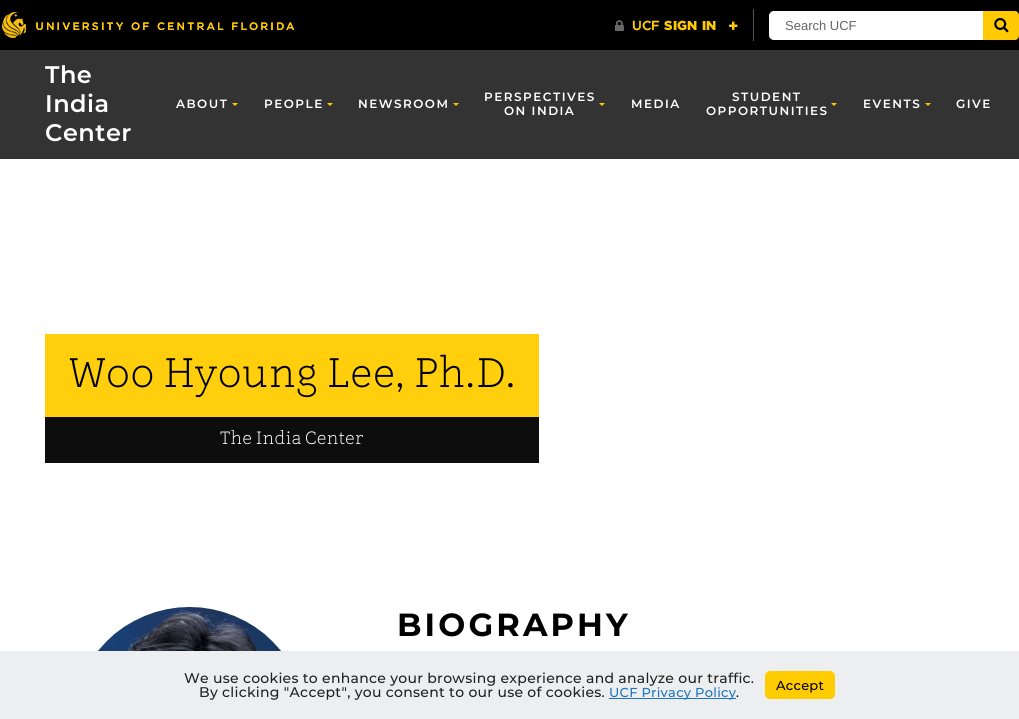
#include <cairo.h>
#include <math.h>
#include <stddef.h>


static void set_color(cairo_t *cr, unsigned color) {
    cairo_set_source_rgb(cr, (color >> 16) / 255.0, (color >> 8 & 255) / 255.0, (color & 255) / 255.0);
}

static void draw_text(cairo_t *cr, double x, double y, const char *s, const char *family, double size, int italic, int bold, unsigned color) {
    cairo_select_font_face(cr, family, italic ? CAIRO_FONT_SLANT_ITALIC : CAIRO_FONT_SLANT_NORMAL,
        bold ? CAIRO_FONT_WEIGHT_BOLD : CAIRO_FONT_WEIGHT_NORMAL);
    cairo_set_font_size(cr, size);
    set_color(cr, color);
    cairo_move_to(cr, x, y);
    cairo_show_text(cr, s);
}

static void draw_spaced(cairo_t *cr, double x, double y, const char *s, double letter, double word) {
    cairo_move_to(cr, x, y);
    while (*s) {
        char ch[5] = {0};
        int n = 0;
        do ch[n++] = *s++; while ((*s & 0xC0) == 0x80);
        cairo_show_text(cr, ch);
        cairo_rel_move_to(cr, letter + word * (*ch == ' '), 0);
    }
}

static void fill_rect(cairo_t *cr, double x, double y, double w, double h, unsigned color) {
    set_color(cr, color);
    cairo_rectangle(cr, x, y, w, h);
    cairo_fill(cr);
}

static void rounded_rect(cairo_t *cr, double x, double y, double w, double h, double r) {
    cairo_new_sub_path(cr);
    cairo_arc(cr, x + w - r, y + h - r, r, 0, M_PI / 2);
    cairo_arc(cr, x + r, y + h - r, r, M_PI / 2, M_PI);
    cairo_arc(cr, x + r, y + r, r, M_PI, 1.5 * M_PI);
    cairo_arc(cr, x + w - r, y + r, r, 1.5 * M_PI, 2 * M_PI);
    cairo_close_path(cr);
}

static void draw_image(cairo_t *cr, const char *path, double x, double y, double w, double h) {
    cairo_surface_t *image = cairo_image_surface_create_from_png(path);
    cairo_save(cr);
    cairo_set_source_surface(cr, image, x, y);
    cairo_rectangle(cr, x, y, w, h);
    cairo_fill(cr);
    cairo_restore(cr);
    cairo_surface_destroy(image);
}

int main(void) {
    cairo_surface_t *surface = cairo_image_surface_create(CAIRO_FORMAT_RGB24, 1019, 719);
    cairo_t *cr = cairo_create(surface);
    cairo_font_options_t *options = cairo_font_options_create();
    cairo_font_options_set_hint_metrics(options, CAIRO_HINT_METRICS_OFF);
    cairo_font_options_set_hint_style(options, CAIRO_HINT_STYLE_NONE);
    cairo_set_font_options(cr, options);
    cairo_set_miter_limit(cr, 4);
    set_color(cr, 0xFFFFFF);
    cairo_paint(cr);
    fill_rect(cr, 0, 0, 1019, 50, 0x000000);
    draw_image(cr, "assets/img1.png", 2, 12, 293, 26);
    draw_image(cr, "assets/img2.png", 615, 20, 123, 11);
    fill_rect(cr, 753, 9, 1, 32, 0x555555);
    set_color(cr, 0xFFFFFF);
    cairo_new_path(cr);
    cairo_move_to(cr, 774, 11.5);
    cairo_line_to(cr, 993.5, 11.5);
    cairo_line_to(cr, 993.5, 39.5);
    cairo_line_to(cr, 774, 39.5);
    cairo_curve_to(cr, 771.5, 39.5, 769.5, 37.5, 769.5, 35);
    cairo_line_to(cr, 769.5, 16);
    cairo_curve_to(cr, 769.5, 13.5, 771.5, 11.5, 774, 11.5);
    cairo_close_path(cr);
    cairo_fill_preserve(cr);
    cairo_set_line_width(cr, 1);
    cairo_stroke(cr);
    draw_text(cr, 785, 30, "Search UCF", "Liberation Sans", 13, 0, 0, 0x666666);
    set_color(cr, 0xFFC904);
    cairo_new_path(cr);
    cairo_move_to(cr, 983, 11);
    cairo_line_to(cr, 1015, 11);
    cairo_curve_to(cr, 1017, 11, 1019, 13, 1019, 15);
    cairo_line_to(cr, 1019, 36);
    cairo_curve_to(cr, 1019, 38, 1017, 40, 1015, 40);
    cairo_line_to(cr, 983, 40);
    cairo_close_path(cr);
    cairo_fill(cr);
    draw_image(cr, "assets/img3.png", 994, 18, 15, 15);
    fill_rect(cr, 0, 50, 1019, 109, 0x333333);
    draw_text(cr, 45, 83, "The", "Montserrat SemiBold", 24, 0, 0, 0xFFFFFF);
    draw_text(cr, 45, 112, "India", "Montserrat SemiBold", 24, 0, 0, 0xFFFFFF);
    draw_text(cr, 45, 141, "Center", "Montserrat SemiBold", 24, 0, 0, 0xFFFFFF);
    cairo_set_font_size(cr, 12);
    draw_spaced(cr, 176, 108, "ABOUT", 1.25, 0);
    set_color(cr, 0xFFC904);
    cairo_new_path(cr);
    cairo_move_to(cr, 232, 103);
    cairo_line_to(cr, 238, 103);
    cairo_line_to(cr, 235, 106);
    cairo_close_path(cr);
    cairo_fill(cr);
    set_color(cr, 0xFFFFFF);
    draw_spaced(cr, 264, 108, "PEOPLE", 1.25, 0);
    set_color(cr, 0xFFC904);
    cairo_new_path(cr);
    cairo_move_to(cr, 327, 103);
    cairo_line_to(cr, 333, 103);
    cairo_line_to(cr, 330, 106);
    cairo_close_path(cr);
    cairo_fill(cr);
    set_color(cr, 0xFFFFFF);
    draw_spaced(cr, 358, 108, "NEWSROOM", 1.25, 0);
    set_color(cr, 0xFFC904);
    cairo_new_path(cr);
    cairo_move_to(cr, 453, 103);
    cairo_line_to(cr, 459, 103);
    cairo_line_to(cr, 456, 106);
    cairo_close_path(cr);
    cairo_fill(cr);
    set_color(cr, 0xFFFFFF);
    draw_spaced(cr, 484, 101, "PERSPECTIVES", 1.25, 0);
    set_color(cr, 0xFFC904);
    cairo_new_path(cr);
    cairo_move_to(cr, 599, 103);
    cairo_line_to(cr, 605, 103);
    cairo_line_to(cr, 602, 106);
    cairo_close_path(cr);
    cairo_fill(cr);
    set_color(cr, 0xFFFFFF);
    draw_spaced(cr, 504, 115, "ON INDIA", 1.25, 0);
    draw_spaced(cr, 631, 108, "MEDIA", 1.25, 0);
    draw_spaced(cr, 732, 101, "STUDENT", 1.25, 0);
    set_color(cr, 0xFFC904);
    cairo_new_path(cr);
    cairo_move_to(cr, 831, 103);
    cairo_line_to(cr, 837, 103);
    cairo_line_to(cr, 834, 106);
    cairo_close_path(cr);
    cairo_fill(cr);
    set_color(cr, 0xFFFFFF);
    draw_spaced(cr, 706, 115, "OPPORTUNITIES", 1.25, 0);
    draw_spaced(cr, 863, 108, "EVENTS", 1.25, 0);
    set_color(cr, 0xFFC904);
    cairo_new_path(cr);
    cairo_move_to(cr, 925, 103);
    cairo_line_to(cr, 931, 103);
    cairo_line_to(cr, 928, 106);
    cairo_close_path(cr);
    cairo_fill(cr);
    set_color(cr, 0xFFFFFF);
    draw_spaced(cr, 956, 108, "GIVE", 1.25, 0);
    fill_rect(cr, 45, 334, 494, 83, 0xFFCF0D);
    draw_text(cr, 69, 387, "Woo Hyoung Lee, Ph.D.", "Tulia", 48, 0, 0, 0x000000);
    fill_rect(cr, 45, 417, 494, 46, 0x0D0D0D);
    draw_text(cr, 220, 444, "The India Center", "Tulia", 20.75, 0, 0, 0xFFFFFF);
    draw_image(cr, "assets/img4.png", 98, 607, 183, 44);
    cairo_select_font_face(cr, "Montserrat", CAIRO_FONT_SLANT_NORMAL, CAIRO_FONT_WEIGHT_BOLD);
    cairo_set_font_size(cr, 32);
    set_color(cr, 0x000000);
    draw_spaced(cr, 397, 636, "BIOGRAPHY", 2.5, 0);
    fill_rect(cr, 0, 651, 1019, 68, 0xECEEEF);
    draw_text(cr, 184, 683, "We use cookies to enhance your browsing experience and analyze our traffic.", "Montserrat Medium", 14, 0, 0, 0x212121);
    draw_text(cr, 199, 697, "By clicking \"Accept\", you consent to our use of cookies.", "Montserrat Medium", 14, 0, 0, 0x212121);
    fill_rect(cr, 609, 698, 127, 1, 0x1E73BE);
    draw_text(cr, 609, 697, "UCF Privacy Policy", "Montserrat Medium", 13, 0, 0, 0x1E73BE);
    draw_text(cr, 736, 697, ".", "Montserrat Medium", 13, 0, 0, 0x000000);
    set_color(cr, 0xFFCC00);
    rounded_rect(cr, 765.5, 671.5, 69, 27, 4.5);
    cairo_fill_preserve(cr);
    cairo_stroke(cr);
    draw_text(cr, 776, 690, "Accept", "Montserrat Medium", 13, 0, 0, 0x000000);
    cairo_surface_write_to_png(surface, "output.png");
    cairo_font_options_destroy(options);
    cairo_destroy(cr);
    cairo_surface_destroy(surface);
    return 0;
}
